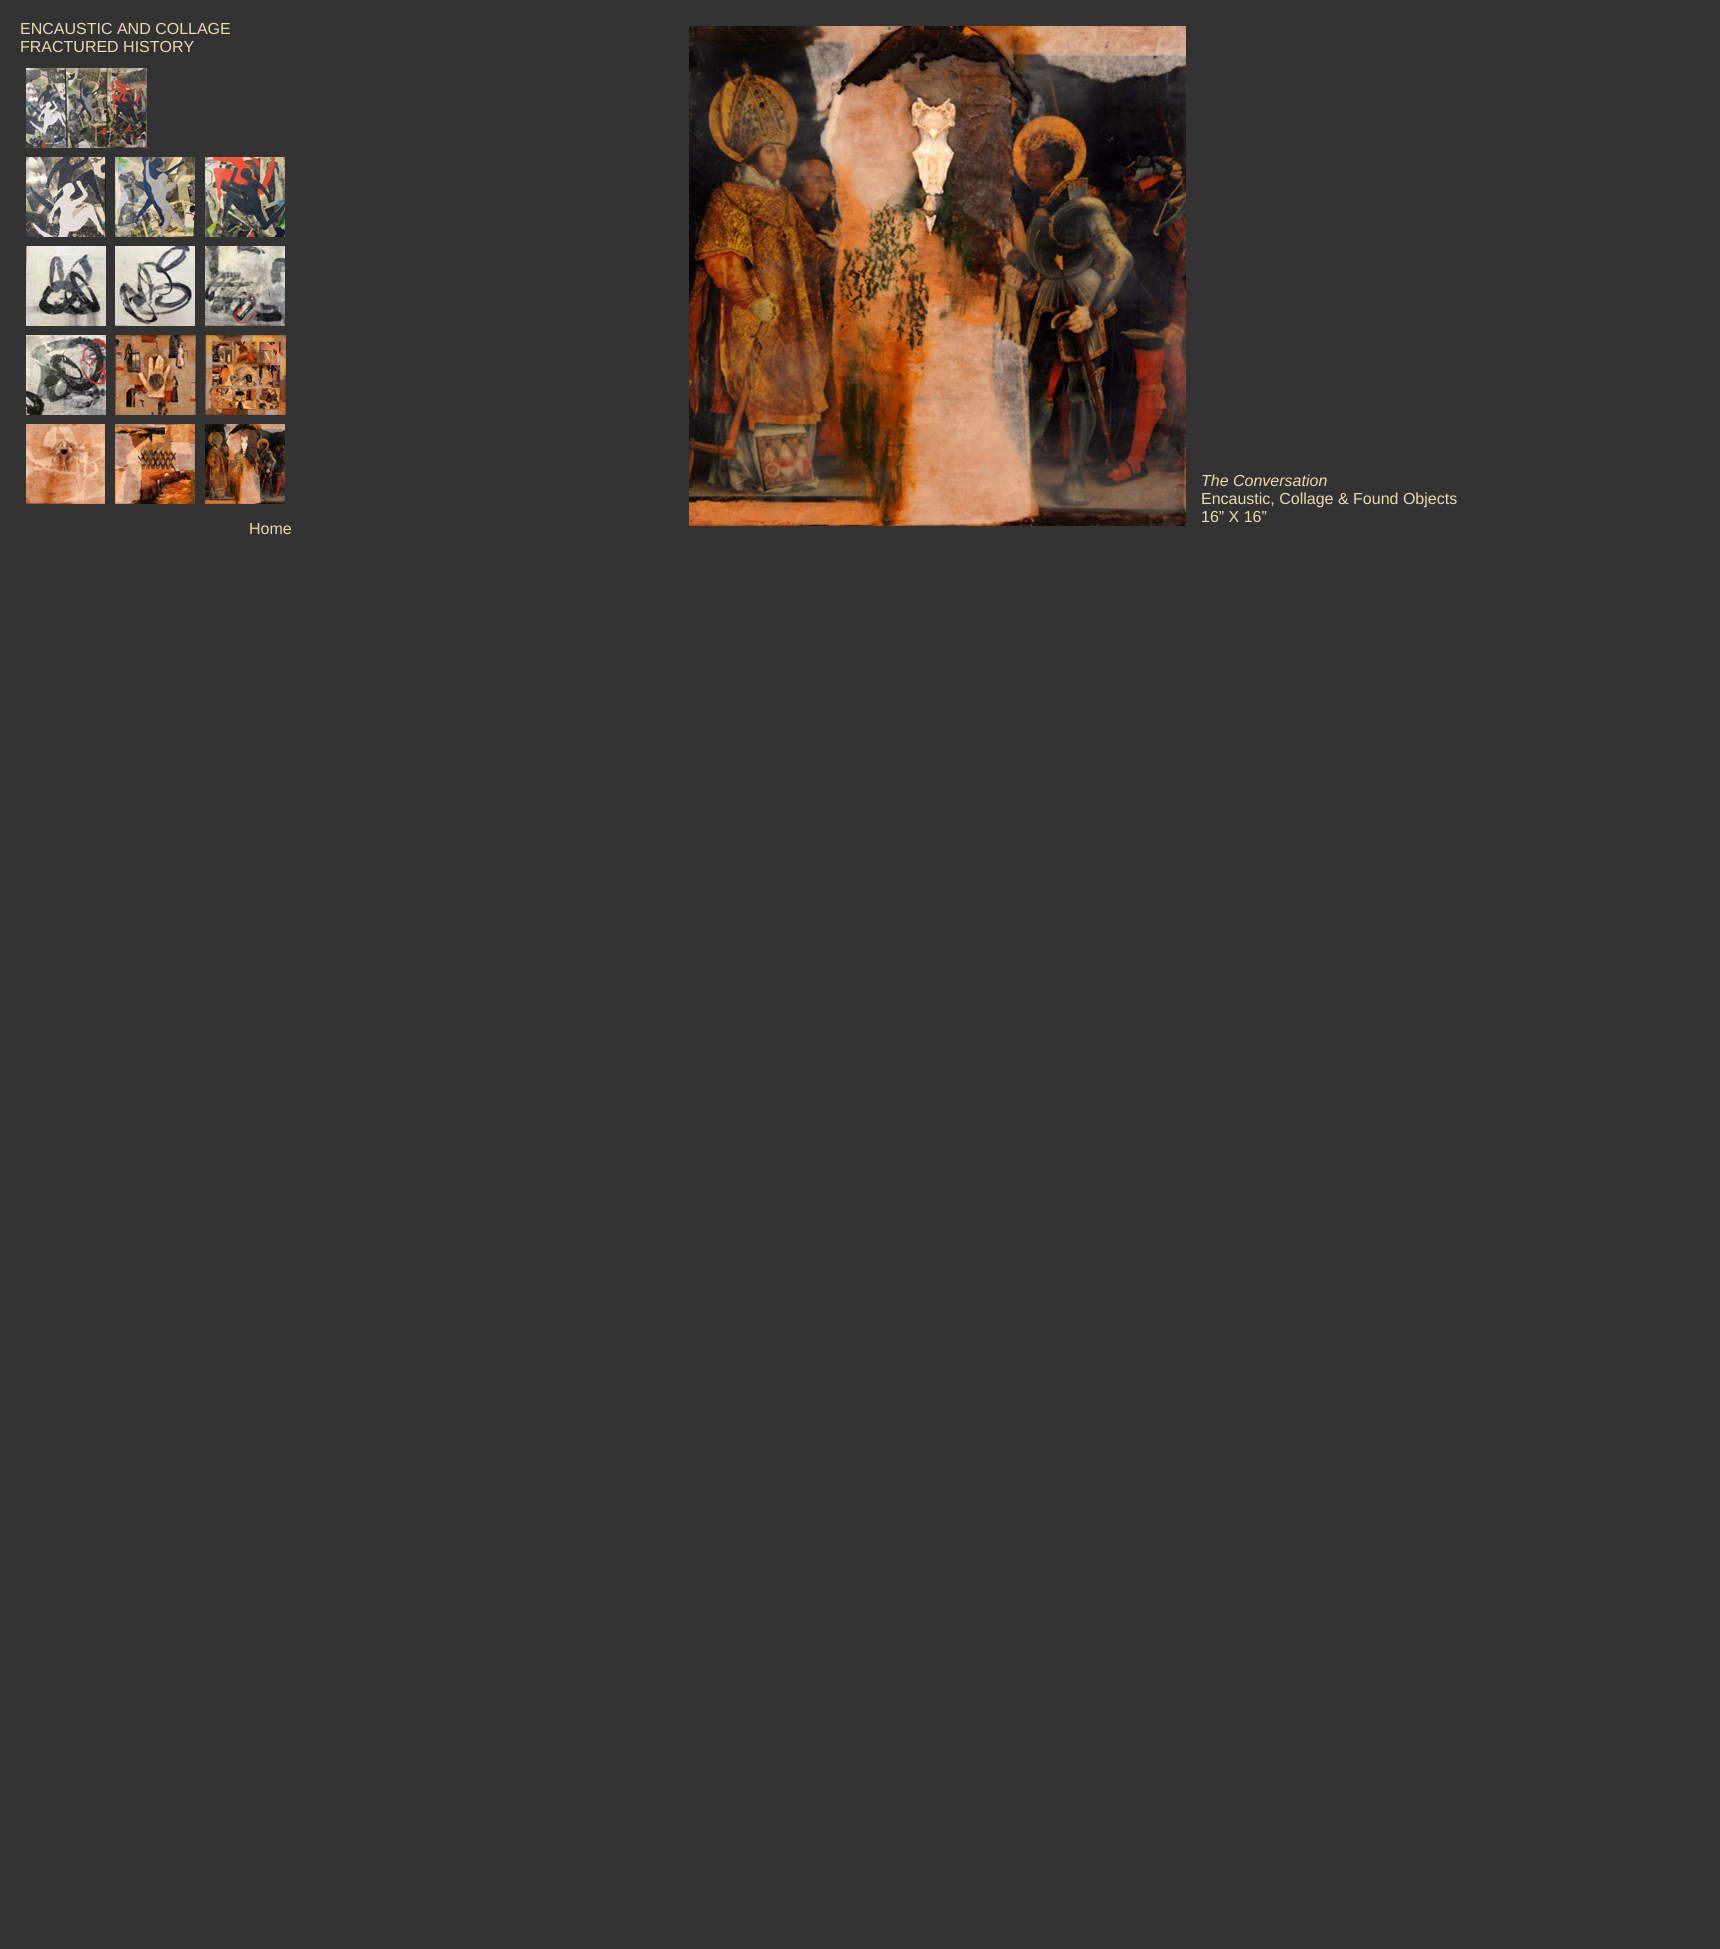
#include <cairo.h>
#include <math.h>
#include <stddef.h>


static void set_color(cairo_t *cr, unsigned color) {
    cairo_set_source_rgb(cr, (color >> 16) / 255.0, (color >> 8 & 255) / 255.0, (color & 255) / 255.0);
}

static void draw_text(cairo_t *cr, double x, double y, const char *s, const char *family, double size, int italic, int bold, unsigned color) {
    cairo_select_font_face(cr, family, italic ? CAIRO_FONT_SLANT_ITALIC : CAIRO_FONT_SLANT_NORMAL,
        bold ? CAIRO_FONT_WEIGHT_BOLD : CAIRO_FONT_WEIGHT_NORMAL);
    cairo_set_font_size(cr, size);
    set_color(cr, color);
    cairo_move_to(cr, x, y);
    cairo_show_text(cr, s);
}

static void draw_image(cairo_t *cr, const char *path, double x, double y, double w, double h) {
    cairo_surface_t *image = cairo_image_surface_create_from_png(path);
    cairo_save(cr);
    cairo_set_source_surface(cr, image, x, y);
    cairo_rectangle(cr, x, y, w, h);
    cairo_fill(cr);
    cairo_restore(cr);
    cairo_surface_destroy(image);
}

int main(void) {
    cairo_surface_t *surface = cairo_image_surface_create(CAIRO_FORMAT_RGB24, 1720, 1949);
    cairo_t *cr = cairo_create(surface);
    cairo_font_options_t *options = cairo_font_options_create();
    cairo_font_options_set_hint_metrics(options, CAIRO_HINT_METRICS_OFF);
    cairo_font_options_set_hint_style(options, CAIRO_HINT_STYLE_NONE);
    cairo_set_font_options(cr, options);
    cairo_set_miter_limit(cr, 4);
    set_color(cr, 0x333333);
    cairo_paint(cr);
    draw_text(cr, 20, 34, "ENCAUSTIC AND COLLAGE", "Liberation Sans", 16, 0, 0, 0xEBDAB1);
    draw_text(cr, 20, 52, "FRACTURED HISTORY", "Liberation Sans", 16, 0, 0, 0xEBDAB1);
    draw_image(cr, "assets/img1.png", 26, 68, 121, 80);
    draw_image(cr, "assets/img2.png", 26, 157, 80, 80);
    draw_image(cr, "assets/img3.png", 115, 157, 80, 80);
    draw_image(cr, "assets/img4.png", 205, 157, 80, 80);
    draw_image(cr, "assets/img5.png", 26, 246, 80, 80);
    draw_image(cr, "assets/img6.png", 115, 246, 80, 80);
    draw_image(cr, "assets/img7.png", 205, 246, 80, 80);
    draw_image(cr, "assets/img8.png", 26, 335, 80, 80);
    draw_image(cr, "assets/img9.png", 115, 335, 81, 80);
    draw_image(cr, "assets/img10.png", 205, 335, 81, 80);
    draw_image(cr, "assets/img11.png", 26, 424, 79, 80);
    draw_image(cr, "assets/img12.png", 115, 424, 80, 80);
    draw_image(cr, "assets/img13.png", 205, 424, 80, 80);
    draw_text(cr, 249, 534, "Home", "Liberation Sans", 16, 0, 0, 0xEBDAB1);
    draw_image(cr, "assets/img14.png", 689, 26, 497, 500);
    draw_text(cr, 1201, 486, "The Conversation", "Liberation Sans", 16, 1, 0, 0xEBDAB1);
    draw_text(cr, 1201, 504, "Encaustic, Collage & Found Objects", "Liberation Sans", 16, 0, 0, 0xEBDAB1);
    draw_text(cr, 1201, 522, "16” X 16”", "Liberation Sans", 16, 0, 0, 0xEBDAB1);
    cairo_surface_write_to_png(surface, "output.png");
    cairo_font_options_destroy(options);
    cairo_destroy(cr);
    cairo_surface_destroy(surface);
    return 0;
}
